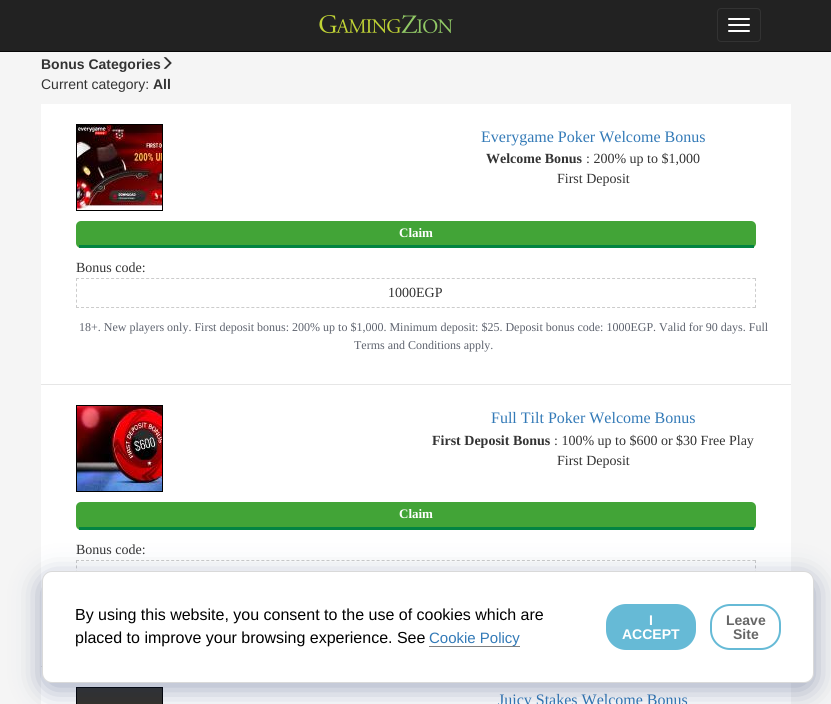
#include <cairo.h>
#include <math.h>
#include <stddef.h>


static void set_color(cairo_t *cr, unsigned color) {
    cairo_set_source_rgb(cr, (color >> 16) / 255.0, (color >> 8 & 255) / 255.0, (color & 255) / 255.0);
}

static void draw_text(cairo_t *cr, double x, double y, const char *s, const char *family, double size, int italic, int bold, unsigned color) {
    cairo_select_font_face(cr, family, italic ? CAIRO_FONT_SLANT_ITALIC : CAIRO_FONT_SLANT_NORMAL,
        bold ? CAIRO_FONT_WEIGHT_BOLD : CAIRO_FONT_WEIGHT_NORMAL);
    cairo_set_font_size(cr, size);
    set_color(cr, color);
    cairo_move_to(cr, x, y);
    cairo_show_text(cr, s);
}

static void fill_rect(cairo_t *cr, double x, double y, double w, double h, unsigned color) {
    set_color(cr, color);
    cairo_rectangle(cr, x, y, w, h);
    cairo_fill(cr);
}

static void rounded_rect(cairo_t *cr, double x, double y, double w, double h, double r) {
    cairo_new_sub_path(cr);
    cairo_arc(cr, x + w - r, y + h - r, r, 0, M_PI / 2);
    cairo_arc(cr, x + r, y + h - r, r, M_PI / 2, M_PI);
    cairo_arc(cr, x + r, y + r, r, M_PI, 1.5 * M_PI);
    cairo_arc(cr, x + w - r, y + r, r, 1.5 * M_PI, 2 * M_PI);
    cairo_close_path(cr);
}

static void draw_shadow(cairo_t *cr, double x, double y, double w, double h, double r, double blur, double alpha) {
    cairo_push_group_with_content(cr, CAIRO_CONTENT_ALPHA);
    cairo_set_operator(cr, CAIRO_OPERATOR_SOURCE);
    for (int i = 15; i >= -15 && fmin(w, h) + blur * i / 3 > 0; i -= 2) {
        double e = blur * i / 6;
        cairo_set_source_rgba(cr, 0, 0, 0, alpha * erfc((i - 1) / 8.5) / 2);
        rounded_rect(cr, x - e, y - e, w + 2 * e, h + 2 * e, fmax(0, fmin(r + e + blur * .6, fmin(w, h) / 2 + e)));
        cairo_fill(cr);
    }
    cairo_pattern_t *soft = cairo_pop_group(cr);
    cairo_mask(cr, soft);
    cairo_pattern_destroy(soft);
}

static void draw_image(cairo_t *cr, const char *path, double x, double y, double w, double h) {
    cairo_surface_t *image = cairo_image_surface_create_from_png(path);
    cairo_save(cr);
    cairo_set_source_surface(cr, image, x, y);
    cairo_rectangle(cr, x, y, w, h);
    cairo_fill(cr);
    cairo_restore(cr);
    cairo_surface_destroy(image);
}

int main(void) {
    cairo_surface_t *surface = cairo_image_surface_create(CAIRO_FORMAT_RGB24, 831, 704);
    cairo_t *cr = cairo_create(surface);
    cairo_font_options_t *options = cairo_font_options_create();
    cairo_font_options_set_hint_metrics(options, CAIRO_HINT_METRICS_OFF);
    cairo_font_options_set_hint_style(options, CAIRO_HINT_STYLE_NONE);
    cairo_set_font_options(cr, options);
    cairo_set_miter_limit(cr, 4);
    set_color(cr, 0xF5F5F5);
    cairo_paint(cr);
    fill_rect(cr, 0, 0, 831, 51, 0x222222);
    fill_rect(cr, 0, 51, 831, 1, 0x080808);
    draw_image(cr, "assets/img1.png", 319, 14, 134, 20);
    rounded_rect(cr, 717.5, 8.5, 43, 33, 3.5);
    set_color(cr, 0x333333);
    cairo_set_line_width(cr, 1);
    cairo_stroke(cr);
    set_color(cr, 0xFFFFFF);
    rounded_rect(cr, 728, 18, 22, 2, 1);
    cairo_fill(cr);
    rounded_rect(cr, 728, 24, 22, 2, 1);
    cairo_fill(cr);
    rounded_rect(cr, 728, 30, 22, 2, 1);
    cairo_fill(cr);
    draw_text(cr, 41, 69, "Bonus Categories", "Liberation Sans", 14, 0, 1, 0x333333);
    draw_image(cr, "assets/img2.png", 163, 57, 9, 12);
    draw_text(cr, 41, 89, "Current category:", "Liberation Sans", 14, 0, 0, 0x333333);
    draw_text(cr, 153, 89, "All", "Liberation Sans", 14, 0, 1, 0x333333);
    fill_rect(cr, 41, 104, 750, 280, 0xFFFFFF);
    fill_rect(cr, 41, 384, 750, 1, 0xE6E6E6);
    cairo_rectangle(cr, 76.5, 124.5, 86, 86);
    set_color(cr, 0x000000);
    cairo_stroke(cr);
    draw_image(cr, "assets/img3.png", 77, 125, 85, 85);
    draw_text(cr, 481, 142, "Everygame Poker Welcome Bonus", "Liberation Serif", 16, 0, 0, 0x337AB7);
    draw_text(cr, 486, 163, "Welcome Bonus", "Liberation Serif", 14, 0, 1, 0x333333);
    draw_text(cr, 586, 163, ": 200% up to $1,000", "Liberation Serif", 14, 0, 0, 0x333333);
    draw_text(cr, 557, 183, "First Deposit", "Liberation Serif", 14, 0, 0, 0x333333);
    set_color(cr, 0x42A437);
    rounded_rect(cr, 76, 221, 680, 27, 5);
    cairo_fill(cr);
    fill_rect(cr, 79, 245, 675, 3, 0x038442);
    draw_text(cr, 399, 237, "Claim", "Liberation Serif", 13, 0, 1, 0xFFFFFF);
    draw_text(cr, 76, 272, "Bonus code:", "Liberation Serif", 14, 0, 0, 0x333333);
    cairo_new_path(cr);
    cairo_move_to(cr, 76, 278.5);
    cairo_line_to(cr, 756, 278.5);
    set_color(cr, 0xCCCCCC);
    cairo_set_dash(cr, (double[]){3, 2.01}, 2, 0);
    cairo_stroke(cr);
    cairo_new_path(cr);
    cairo_move_to(cr, 755.5, 278);
    cairo_line_to(cr, 755.5, 308);
    cairo_set_dash(cr, (double[]){3, 2.4}, 2, 0);
    cairo_stroke(cr);
    cairo_new_path(cr);
    cairo_move_to(cr, 76, 307.5);
    cairo_line_to(cr, 756, 307.5);
    cairo_set_dash(cr, (double[]){3, 2.01}, 2, 0);
    cairo_stroke(cr);
    cairo_new_path(cr);
    cairo_move_to(cr, 76.5, 278);
    cairo_line_to(cr, 76.5, 308);
    cairo_set_dash(cr, (double[]){3, 2.4}, 2, 0);
    cairo_stroke(cr);
    draw_text(cr, 388, 297, "1000EGP", "Liberation Serif", 14, 0, 0, 0x333333);
    draw_text(cr, 79, 331, "18+. New players only. First deposit bonus: 200% up to $1,000. Minimum deposit: $25. Deposit bonus code: 1000EGP. Valid for 90 days. Full", "Liberation Serif", 12, 0, 0, 0x5E636E);
    draw_text(cr, 354, 349, "Terms and Conditions apply.", "Liberation Serif", 12, 0, 0, 0x5E636E);
    fill_rect(cr, 41, 385, 750, 281, 0xFFFFFF);
    fill_rect(cr, 41, 666, 1, 1, 0xE6E6E6);
    cairo_rectangle(cr, 76.5, 405.5, 86, 86);
    set_color(cr, 0x000000);
    cairo_set_dash(cr, NULL, 0, 0);
    cairo_stroke(cr);
    draw_image(cr, "assets/img4.png", 77, 406, 85, 85);
    draw_text(cr, 491, 423, "Full Tilt Poker Welcome Bonus", "Liberation Serif", 16, 0, 0, 0x337AB7);
    draw_text(cr, 432, 445, "First Deposit Bonus", "Liberation Serif", 14, 0, 1, 0x333333);
    draw_text(cr, 554, 445, ": 100% up to $600 or $30 Free Play", "Liberation Serif", 14, 0, 0, 0x333333);
    draw_text(cr, 557, 465, "First Deposit", "Liberation Serif", 14, 0, 0, 0x333333);
    set_color(cr, 0x42A437);
    rounded_rect(cr, 76, 502, 680, 28, 5);
    cairo_fill(cr);
    fill_rect(cr, 79, 527, 675, 3, 0x038442);
    draw_text(cr, 399, 518, "Claim", "Liberation Serif", 13, 0, 1, 0xFFFFFF);
    draw_text(cr, 76, 554, "Bonus code:", "Liberation Serif", 14, 0, 0, 0x333333);
    cairo_new_path(cr);
    cairo_move_to(cr, 76, 560.5);
    cairo_line_to(cr, 756, 560.5);
    set_color(cr, 0xCCCCCC);
    cairo_set_dash(cr, (double[]){3, 2.01}, 2, 0);
    cairo_stroke(cr);
    cairo_new_path(cr);
    cairo_move_to(cr, 755.5, 560);
    cairo_line_to(cr, 755.5, 590);
    cairo_set_dash(cr, (double[]){3, 2.4}, 2, 0);
    cairo_stroke(cr);
    cairo_new_path(cr);
    cairo_move_to(cr, 76.5, 560);
    cairo_line_to(cr, 76.5, 590);
    cairo_stroke(cr);
    fill_rect(cr, 41, 667, 750, 37, 0xFFFFFF);
    cairo_rectangle(cr, 76.5, 687.5, 86, 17);
    set_color(cr, 0x000000);
    cairo_set_dash(cr, NULL, 0, 0);
    cairo_stroke(cr);
    fill_rect(cr, 77, 688, 85, 16, 0x35322B);
    draw_text(cr, 498, 705, "Juicy Stakes Welcome Bonus", "Liberation Serif", 16, 0, 0, 0x337AB7);
    set_color(cr, 0x172B63);
    draw_shadow(cr, 42, 578, 772, 112, 10, 14, 0.4);
    set_color(cr, 0xFFFFFF);
    rounded_rect(cr, 42, 571, 772, 112, 10);
    cairo_fill(cr);
    rounded_rect(cr, 42.5, 571.5, 771, 111, 9.5);
    cairo_set_source_rgba(cr, 0, 0, 0, 0.15);
    cairo_stroke(cr);
    draw_text(cr, 75, 620, "By using this website, you consent to the use of cookies which are", "Liberation Sans", 16, 0, 0, 0x000000);
    draw_text(cr, 75, 643, "placed to improve your browsing experience. See", "Liberation Sans", 16, 0, 0, 0x000000);
    fill_rect(cr, 429, 646, 91, 1, 0x808080);
    draw_text(cr, 429, 643, "Cookie Policy", "Liberation Sans", 15, 0, 0, 0x337AB7);
    set_color(cr, 0x66BAD6);
    rounded_rect(cr, 607, 605, 88, 44, 19);
    cairo_fill_preserve(cr);
    cairo_set_line_width(cr, 2);
    cairo_stroke(cr);
    draw_text(cr, 649, 625, "I", "Liberation Sans", 14, 0, 1, 0xFFFFFF);
    draw_text(cr, 622, 639, "ACCEPT", "Liberation Sans", 14, 0, 1, 0xFFFFFF);
    rounded_rect(cr, 711, 605, 69, 44, 19);
    set_color(cr, 0x66BAD6);
    cairo_stroke(cr);
    draw_text(cr, 726, 625, "Leave", "Liberation Sans", 14, 0, 1, 0x666666);
    draw_text(cr, 733, 639, "Site", "Liberation Sans", 14, 0, 1, 0x666666);
    cairo_surface_write_to_png(surface, "output.png");
    cairo_font_options_destroy(options);
    cairo_destroy(cr);
    cairo_surface_destroy(surface);
    return 0;
}
